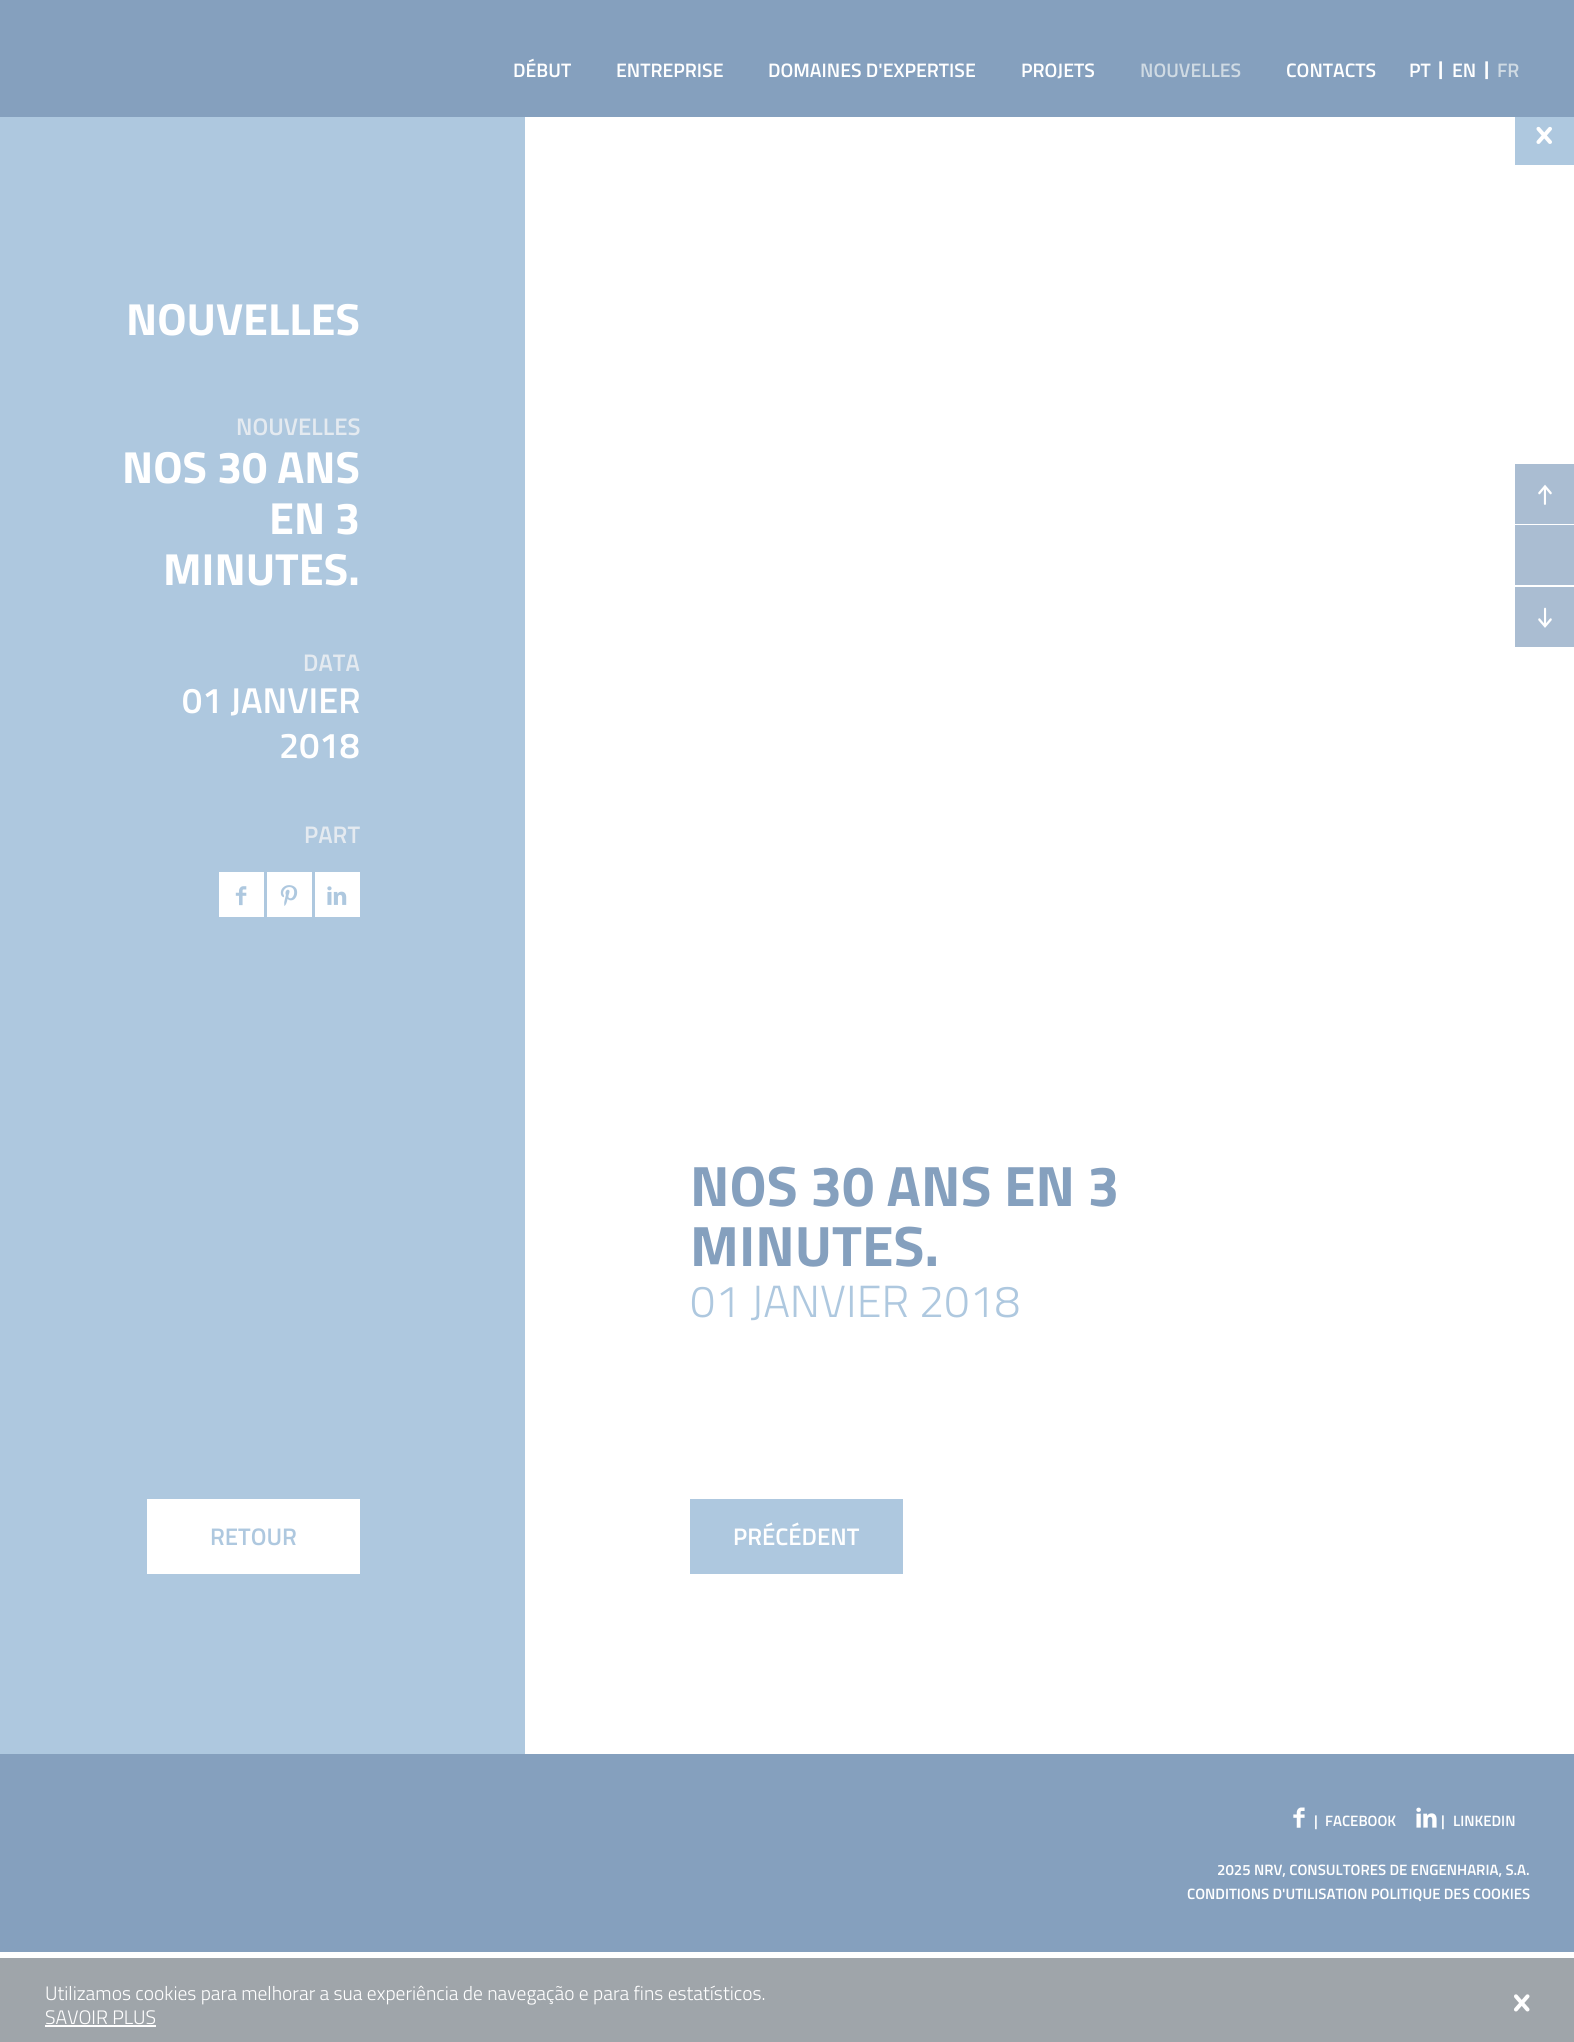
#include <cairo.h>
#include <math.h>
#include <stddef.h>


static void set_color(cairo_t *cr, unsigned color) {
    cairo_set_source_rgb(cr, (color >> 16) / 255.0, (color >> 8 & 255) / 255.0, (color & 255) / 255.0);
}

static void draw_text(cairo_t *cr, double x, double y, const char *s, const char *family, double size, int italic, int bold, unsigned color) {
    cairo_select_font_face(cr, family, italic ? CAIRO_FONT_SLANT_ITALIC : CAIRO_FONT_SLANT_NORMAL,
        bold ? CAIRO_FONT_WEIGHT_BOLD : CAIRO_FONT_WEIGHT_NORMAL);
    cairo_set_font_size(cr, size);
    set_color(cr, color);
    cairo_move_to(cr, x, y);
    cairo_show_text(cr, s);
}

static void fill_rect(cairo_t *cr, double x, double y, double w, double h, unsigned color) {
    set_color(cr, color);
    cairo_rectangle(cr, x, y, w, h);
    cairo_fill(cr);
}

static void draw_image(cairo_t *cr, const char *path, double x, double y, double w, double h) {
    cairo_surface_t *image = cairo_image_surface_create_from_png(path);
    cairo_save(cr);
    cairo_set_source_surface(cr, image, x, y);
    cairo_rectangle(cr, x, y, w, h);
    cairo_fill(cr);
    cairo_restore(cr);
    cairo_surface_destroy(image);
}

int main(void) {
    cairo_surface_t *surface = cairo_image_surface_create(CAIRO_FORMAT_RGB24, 1574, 2042);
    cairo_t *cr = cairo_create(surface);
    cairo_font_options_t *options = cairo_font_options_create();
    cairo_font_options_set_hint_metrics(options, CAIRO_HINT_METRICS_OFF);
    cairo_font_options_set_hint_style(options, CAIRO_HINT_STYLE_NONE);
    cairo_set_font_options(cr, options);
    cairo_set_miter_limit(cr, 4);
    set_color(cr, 0xFFFFFF);
    cairo_paint(cr);
    fill_rect(cr, 0, 0, 1574, 117, 0x85A0BE);
    draw_text(cr, 513, 77, "DÉBUT", "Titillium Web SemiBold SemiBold", 19.5, 0, 0, 0xFFFFFF);
    draw_text(cr, 616, 77, "ENTREPRISE", "Titillium Web SemiBold SemiBold", 19.5, 0, 0, 0xFFFFFF);
    draw_text(cr, 768, 77, "DOMAINES D'EXPERTISE", "Titillium Web SemiBold SemiBold", 19.5, 0, 0, 0xFFFFFF);
    draw_text(cr, 1021, 77, "PROJETS", "Titillium Web SemiBold SemiBold", 19.5, 0, 0, 0xFFFFFF);
    draw_text(cr, 1140, 77, "NOUVELLES", "Titillium Web SemiBold SemiBold", 19.5, 0, 0, 0xCFDAE3);
    draw_text(cr, 1286, 77, "CONTACTS", "Titillium Web SemiBold SemiBold", 19.5, 0, 0, 0xFFFFFF);
    draw_text(cr, 1409, 77, "PT", "Titillium Web SemiBold SemiBold", 19.5, 0, 0, 0xFFFFFF);
    draw_text(cr, 1438, 75, "|", "Titillium Web", 19.5, 0, 1, 0xFFFFFF);
    draw_text(cr, 1452, 77, "EN", "Titillium Web SemiBold SemiBold", 19.5, 0, 0, 0xFFFFFF);
    draw_text(cr, 1484, 75, "|", "Titillium Web", 19.5, 0, 1, 0xFFFFFF);
    draw_text(cr, 1497, 77, "FR", "Titillium Web SemiBold SemiBold", 19.5, 0, 0, 0xCFDAE3);
    fill_rect(cr, 0, 117, 525, 1637, 0xAEC8DF);
    draw_text(cr, 126, 335, "NOUVELLES", "Titillium Web", 45, 0, 1, 0xFFFFFF);
    draw_text(cr, 236, 435, "NOUVELLES", "Titillium Web SemiBold SemiBold", 24, 0, 0, 0xE4EAF0);
    draw_text(cr, 122, 483, "NOS 30 ANS", "Titillium Web", 45, 0, 1, 0xFFFFFF);
    draw_text(cr, 269, 534, "EN 3", "Titillium Web", 45, 0, 1, 0xFFFFFF);
    draw_text(cr, 163, 585, "MINUTES.", "Titillium Web", 45, 0, 1, 0xFFFFFF);
    draw_text(cr, 303, 671, "DATA", "Titillium Web SemiBold SemiBold", 24, 0, 0, 0xE4EAF0);
    draw_text(cr, 182, 713, "01 JANVIER", "Titillium Web SemiBold SemiBold", 36, 0, 0, 0xFFFFFF);
    draw_text(cr, 279, 758, "2018", "Titillium Web SemiBold SemiBold", 36, 0, 0, 0xFFFFFF);
    draw_text(cr, 304, 843, "PART", "Titillium Web SemiBold SemiBold", 24, 0, 0, 0xE4EAF0);
    fill_rect(cr, 219, 872, 45, 45, 0xFFFFFF);
    draw_image(cr, "assets/img1.png", 235, 886, 12, 20);
    fill_rect(cr, 267, 872, 45, 45, 0xFFFFFF);
    draw_image(cr, "assets/img2.png", 280, 885, 18, 21);
    fill_rect(cr, 315, 872, 45, 45, 0xFFFFFF);
    draw_image(cr, "assets/img3.png", 327, 886, 20, 19);
    fill_rect(cr, 147, 1499, 213, 75, 0xFFFFFF);
    draw_text(cr, 210, 1545, "RETOUR", "Titillium Web SemiBold SemiBold", 24, 0, 0, 0xAEC8DF);
    fill_rect(cr, 1515, 117, 59, 48, 0xAEC8DF);
    draw_image(cr, "assets/img4.png", 1536, 126, 16, 18);
    fill_rect(cr, 1515, 464, 59, 60, 0xAABDD2);
    draw_image(cr, "assets/img5.png", 1538, 484, 14, 21);
    fill_rect(cr, 1515, 587, 59, 60, 0xAABDD2);
    draw_image(cr, "assets/img6.png", 1538, 607, 14, 21);
    fill_rect(cr, 1515, 525, 59, 60, 0xAABDD2);
    draw_text(cr, 690, 1206, "NOS 30 ANS EN 3", "Titillium Web", 57, 0, 1, 0x85A0BE);
    draw_text(cr, 690, 1266, "MINUTES.", "Titillium Web", 57, 0, 1, 0x85A0BE);
    draw_text(cr, 690, 1317, "01 JANVIER 2018", "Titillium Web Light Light", 45, 0, 0, 0xAEC8DF);
    fill_rect(cr, 690, 1499, 213, 75, 0xAEC8DF);
    draw_text(cr, 733, 1545, "PRÉCÉDENT", "Titillium Web SemiBold SemiBold", 24, 0, 0, 0xFFFFFF);
    fill_rect(cr, 0, 1754, 1574, 198, 0x85A0BE);
    draw_image(cr, "assets/img7.png", 1293, 1807, 12, 21);
    draw_text(cr, 1314, 1826, "|", "Titillium Web SemiBold SemiBold", 15, 0, 0, 0xFFFFFF);
    draw_text(cr, 1325, 1826, "FACEBOOK", "Titillium Web SemiBold SemiBold", 15, 0, 0, 0xFFFFFF);
    draw_image(cr, "assets/img8.png", 1416, 1807, 21, 21);
    draw_text(cr, 1441, 1826, "|", "Titillium Web SemiBold SemiBold", 15, 0, 0, 0xFFFFFF);
    draw_text(cr, 1453, 1826, "LINKEDIN", "Titillium Web SemiBold SemiBold", 15, 0, 0, 0xFFFFFF);
    draw_text(cr, 1217, 1875, "2025 NRV, CONSULTORES DE ENGENHARIA, S.A.", "Titillium Web SemiBold SemiBold", 15, 0, 0, 0xFFFFFF);
    draw_text(cr, 1187, 1899, "CONDITIONS D'UTILISATION POLITIQUE DES COOKIES", "Titillium Web SemiBold SemiBold", 15, 0, 0, 0xFFFFFF);
    fill_rect(cr, 0, 1958, 1574, 84, 0x9FA5AA);
    draw_text(cr, 45, 2000, "Utilizamos cookies para melhorar a sua experiência de navegação e para fins estatísticos.", "Titillium Web Light Light", 19.5, 0, 0, 0xFFFFFF);
    draw_text(cr, 45, 2024, "SAVOIR PLUS", "Titillium Web Light Light", 19.5, 0, 0, 0xFFFFFF);
    fill_rect(cr, 45, 2025, 111, 2, 0xFFFFFF);
    draw_image(cr, "assets/img9.png", 1514, 1994, 16, 18);
    cairo_surface_write_to_png(surface, "output.png");
    cairo_font_options_destroy(options);
    cairo_destroy(cr);
    cairo_surface_destroy(surface);
    return 0;
}
